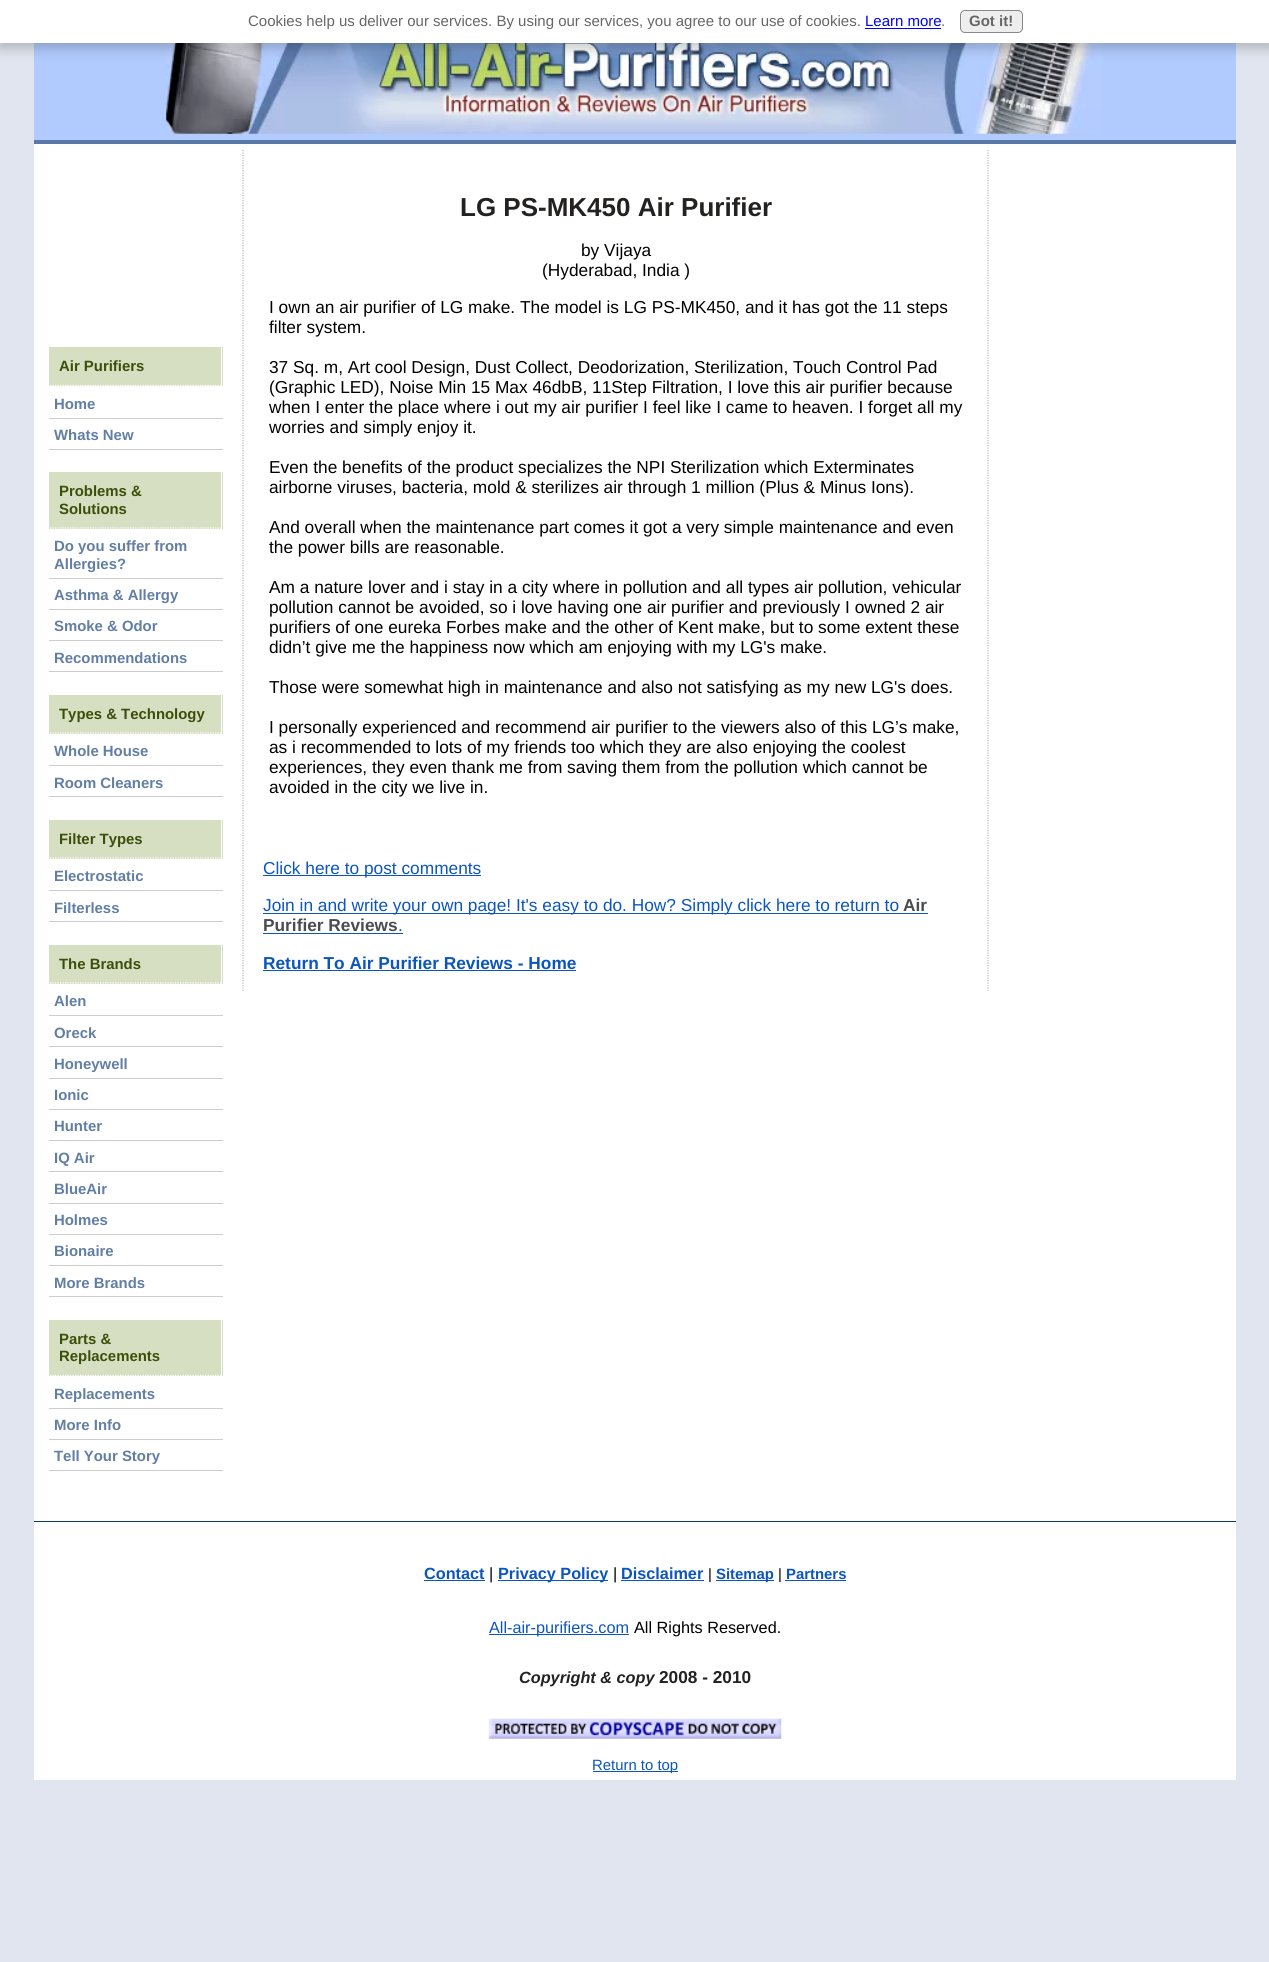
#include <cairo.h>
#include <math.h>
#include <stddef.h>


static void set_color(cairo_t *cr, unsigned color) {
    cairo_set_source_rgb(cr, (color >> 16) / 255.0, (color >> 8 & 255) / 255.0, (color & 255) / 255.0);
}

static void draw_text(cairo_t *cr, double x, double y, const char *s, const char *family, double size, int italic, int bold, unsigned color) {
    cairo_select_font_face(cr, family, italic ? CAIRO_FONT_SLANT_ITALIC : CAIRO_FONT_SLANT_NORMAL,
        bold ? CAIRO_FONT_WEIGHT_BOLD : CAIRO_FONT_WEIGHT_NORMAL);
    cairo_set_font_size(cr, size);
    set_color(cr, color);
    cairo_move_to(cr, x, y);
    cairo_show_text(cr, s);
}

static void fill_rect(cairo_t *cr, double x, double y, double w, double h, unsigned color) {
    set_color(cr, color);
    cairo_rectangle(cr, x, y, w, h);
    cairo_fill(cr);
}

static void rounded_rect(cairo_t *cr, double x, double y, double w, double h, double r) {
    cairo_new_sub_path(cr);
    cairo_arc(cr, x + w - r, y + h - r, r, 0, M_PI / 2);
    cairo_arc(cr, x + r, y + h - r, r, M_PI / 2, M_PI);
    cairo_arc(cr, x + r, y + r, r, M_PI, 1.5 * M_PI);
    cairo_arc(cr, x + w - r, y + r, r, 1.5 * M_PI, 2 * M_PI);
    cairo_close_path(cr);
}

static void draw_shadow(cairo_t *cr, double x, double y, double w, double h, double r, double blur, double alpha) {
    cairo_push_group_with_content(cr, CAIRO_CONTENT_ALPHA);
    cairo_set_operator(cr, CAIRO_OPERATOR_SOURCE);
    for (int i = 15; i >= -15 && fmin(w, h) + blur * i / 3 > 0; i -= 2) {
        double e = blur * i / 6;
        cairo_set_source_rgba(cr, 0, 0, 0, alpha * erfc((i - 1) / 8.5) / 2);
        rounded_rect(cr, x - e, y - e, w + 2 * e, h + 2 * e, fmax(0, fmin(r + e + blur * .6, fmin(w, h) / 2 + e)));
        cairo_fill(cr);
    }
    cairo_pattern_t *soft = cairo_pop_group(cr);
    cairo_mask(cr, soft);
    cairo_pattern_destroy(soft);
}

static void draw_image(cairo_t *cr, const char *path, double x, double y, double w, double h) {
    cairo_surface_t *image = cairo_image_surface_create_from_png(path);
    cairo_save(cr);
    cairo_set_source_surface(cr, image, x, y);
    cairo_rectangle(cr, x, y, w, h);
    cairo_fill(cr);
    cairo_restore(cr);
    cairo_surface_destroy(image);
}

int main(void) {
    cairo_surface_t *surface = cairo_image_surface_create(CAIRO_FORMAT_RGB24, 1269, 1962);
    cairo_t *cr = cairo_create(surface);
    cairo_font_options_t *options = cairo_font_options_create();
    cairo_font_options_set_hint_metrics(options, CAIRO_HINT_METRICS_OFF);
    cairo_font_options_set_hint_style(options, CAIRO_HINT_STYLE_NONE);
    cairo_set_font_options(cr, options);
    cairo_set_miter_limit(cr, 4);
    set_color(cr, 0xE0E5EF);
    cairo_paint(cr);
    fill_rect(cr, 34, 43, 1202, 97, 0xB1CBFE);
    draw_image(cr, "assets/img1.png", 166, 43, 936, 91);
    set_color(cr, 0x000000);
    draw_shadow(cr, -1, 4, 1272, 45, 0, 6, 0.2);
    fill_rect(cr, 0, 0, 1269, 43, 0xFFFFFF);
    draw_text(cr, 248, 26, "Cookies help us deliver our services. By using our services, you agree to our use of cookies.", "Liberation Sans", 15, 0, 0, 0x666666);
    draw_text(cr, 865, 26, "Learn more", "Liberation Sans", 15, 0, 0, 0x0000FF);
    fill_rect(cr, 865, 28, 76, 1, 0x0000FF);
    draw_text(cr, 941, 26, ".", "Liberation Sans", 15, 0, 0, 0x666666);
    set_color(cr, 0xEEEEEE);
    rounded_rect(cr, 960.5, 10.5, 62, 22, 4.5);
    cairo_fill_preserve(cr);
    set_color(cr, 0x888888);
    cairo_set_line_width(cr, 1);
    cairo_stroke(cr);
    draw_text(cr, 969, 26, "Got it!", "Liberation Sans", 15, 0, 1, 0x666666);
    fill_rect(cr, 34, 140, 1202, 4, 0x5878A7);
    fill_rect(cr, 34, 144, 202, 1377, 0xFFFFFF);
    fill_rect(cr, 49, 347, 174, 39, 0xD7DFC3);
    fill_rect(cr, 221, 346, 1, 40, 0xFFFFFF);
    cairo_new_path(cr);
    cairo_move_to(cr, 47.5, 385.5);
    cairo_line_to(cr, 222.5, 385.5);
    cairo_set_line_width(cr, 1.2);
    cairo_set_dash(cr, (double[]){1.25, 1.25}, 2, 0);
    cairo_stroke(cr);
    draw_text(cr, 59, 371, "Air Purifiers", "Liberation Sans", 14.9, 0, 1, 0x3B4F0A);
    fill_rect(cr, 48, 418, 175, 1, 0xCCCCCC);
    fill_rect(cr, 48, 418, 1, 1, 0xFFFFFF);
    draw_text(cr, 54, 409, "Home", "Liberation Sans", 14.9, 0, 1, 0x627EA3);
    fill_rect(cr, 48, 449, 175, 1, 0xCCCCCC);
    fill_rect(cr, 48, 449, 1, 1, 0xFFFFFF);
    draw_text(cr, 54, 440, "Whats New", "Liberation Sans", 14.9, 0, 1, 0x627EA3);
    fill_rect(cr, 49, 472, 174, 57, 0xD7DFC3);
    fill_rect(cr, 221, 471, 1, 58, 0xFFFFFF);
    cairo_new_path(cr);
    cairo_move_to(cr, 47.5, 528);
    cairo_line_to(cr, 222.5, 528);
    cairo_stroke(cr);
    draw_text(cr, 59, 496, "Problems &", "Liberation Sans", 14.9, 0, 1, 0x3B4F0A);
    draw_text(cr, 59, 514, "Solutions", "Liberation Sans", 14.9, 0, 1, 0x3B4F0A);
    fill_rect(cr, 48, 578, 175, 1, 0xCCCCCC);
    fill_rect(cr, 48, 578, 1, 1, 0xFFFFFF);
    draw_text(cr, 54, 551, "Do you suffer from", "Liberation Sans", 14.9, 0, 1, 0x627EA3);
    draw_text(cr, 54, 569, "Allergies?", "Liberation Sans", 14.9, 0, 1, 0x627EA3);
    fill_rect(cr, 48, 609, 175, 1, 0xCCCCCC);
    fill_rect(cr, 48, 609, 1, 1, 0xFFFFFF);
    draw_text(cr, 54, 600, "Asthma & Allergy", "Liberation Sans", 14.9, 0, 1, 0x627EA3);
    fill_rect(cr, 48, 640, 175, 1, 0xCCCCCC);
    fill_rect(cr, 48, 640, 1, 1, 0xFFFFFF);
    draw_text(cr, 54, 631, "Smoke & Odor", "Liberation Sans", 14.9, 0, 1, 0x627EA3);
    fill_rect(cr, 48, 671, 175, 1, 0xCCCCCC);
    fill_rect(cr, 48, 671, 1, 2, 0xFFFFFF);
    draw_text(cr, 54, 663, "Recommendations", "Liberation Sans", 14.9, 0, 1, 0x627EA3);
    fill_rect(cr, 49, 695, 174, 39, 0xD7DFC3);
    fill_rect(cr, 221, 694, 1, 40, 0xFFFFFF);
    cairo_new_path(cr);
    cairo_move_to(cr, 47.5, 733);
    cairo_line_to(cr, 222.5, 733);
    cairo_stroke(cr);
    draw_text(cr, 59, 719, "Types & Technology", "Liberation Sans", 14.9, 0, 1, 0x3B4F0A);
    fill_rect(cr, 48, 765, 175, 1, 0xCCCCCC);
    fill_rect(cr, 48, 765, 1, 1, 0xFFFFFF);
    draw_text(cr, 54, 756, "Whole House", "Liberation Sans", 14.9, 0, 1, 0x627EA3);
    fill_rect(cr, 48, 796, 175, 1, 0xCCCCCC);
    fill_rect(cr, 48, 796, 1, 2, 0xFFFFFF);
    draw_text(cr, 54, 788, "Room Cleaners", "Liberation Sans", 14.9, 0, 1, 0x627EA3);
    fill_rect(cr, 49, 820, 174, 39, 0xD7DFC3);
    fill_rect(cr, 221, 819, 1, 40, 0xFFFFFF);
    cairo_new_path(cr);
    cairo_move_to(cr, 47.5, 858);
    cairo_line_to(cr, 222.5, 858);
    cairo_stroke(cr);
    draw_text(cr, 59, 844, "Filter Types", "Liberation Sans", 14.9, 0, 1, 0x3B4F0A);
    fill_rect(cr, 48, 890, 175, 1, 0xCCCCCC);
    fill_rect(cr, 48, 890, 1, 1, 0xFFFFFF);
    draw_text(cr, 54, 881, "Electrostatic", "Liberation Sans", 14.9, 0, 1, 0x627EA3);
    fill_rect(cr, 48, 921, 175, 1, 0xCCCCCC);
    fill_rect(cr, 48, 921, 1, 2, 0xFFFFFF);
    draw_text(cr, 54, 913, "Filterless", "Liberation Sans", 14.9, 0, 1, 0x627EA3);
    fill_rect(cr, 49, 945, 174, 39, 0xD7DFC3);
    fill_rect(cr, 221, 944, 1, 40, 0xFFFFFF);
    cairo_new_path(cr);
    cairo_move_to(cr, 47.5, 983);
    cairo_line_to(cr, 222.5, 983);
    cairo_stroke(cr);
    draw_text(cr, 59, 969, "The Brands", "Liberation Sans", 14.9, 0, 1, 0x3B4F0A);
    fill_rect(cr, 48, 1015, 175, 1, 0xCCCCCC);
    fill_rect(cr, 48, 1015, 1, 1, 0xFFFFFF);
    draw_text(cr, 54, 1006, "Alen", "Liberation Sans", 14.9, 0, 1, 0x627EA3);
    fill_rect(cr, 48, 1046, 175, 1, 0xCCCCCC);
    fill_rect(cr, 48, 1046, 1, 2, 0xFFFFFF);
    draw_text(cr, 54, 1038, "Oreck", "Liberation Sans", 14.9, 0, 1, 0x627EA3);
    fill_rect(cr, 48, 1078, 175, 1, 0xCCCCCC);
    fill_rect(cr, 48, 1078, 1, 1, 0xFFFFFF);
    draw_text(cr, 54, 1069, "Honeywell", "Liberation Sans", 14.9, 0, 1, 0x627EA3);
    fill_rect(cr, 48, 1109, 175, 1, 0xCCCCCC);
    fill_rect(cr, 48, 1109, 1, 1, 0xFFFFFF);
    draw_text(cr, 54, 1100, "Ionic", "Liberation Sans", 14.9, 0, 1, 0x627EA3);
    fill_rect(cr, 48, 1140, 175, 1, 0xCCCCCC);
    fill_rect(cr, 48, 1140, 1, 1, 0xFFFFFF);
    draw_text(cr, 54, 1131, "Hunter", "Liberation Sans", 14.9, 0, 1, 0x627EA3);
    fill_rect(cr, 48, 1171, 175, 1, 0xCCCCCC);
    fill_rect(cr, 48, 1171, 1, 2, 0xFFFFFF);
    draw_text(cr, 54, 1163, "IQ Air", "Liberation Sans", 14.9, 0, 1, 0x627EA3);
    fill_rect(cr, 48, 1203, 175, 1, 0xCCCCCC);
    fill_rect(cr, 48, 1203, 1, 1, 0xFFFFFF);
    draw_text(cr, 54, 1194, "BlueAir", "Liberation Sans", 14.9, 0, 1, 0x627EA3);
    fill_rect(cr, 48, 1234, 175, 1, 0xCCCCCC);
    fill_rect(cr, 48, 1234, 1, 1, 0xFFFFFF);
    draw_text(cr, 54, 1225, "Holmes", "Liberation Sans", 14.9, 0, 1, 0x627EA3);
    fill_rect(cr, 48, 1265, 175, 1, 0xCCCCCC);
    fill_rect(cr, 48, 1265, 1, 1, 0xFFFFFF);
    draw_text(cr, 54, 1256, "Bionaire", "Liberation Sans", 14.9, 0, 1, 0x627EA3);
    fill_rect(cr, 48, 1296, 175, 1, 0xCCCCCC);
    fill_rect(cr, 48, 1296, 1, 2, 0xFFFFFF);
    draw_text(cr, 54, 1288, "More Brands", "Liberation Sans", 14.9, 0, 1, 0x627EA3);
    fill_rect(cr, 49, 1320, 174, 56, 0xD7DFC3);
    fill_rect(cr, 221, 1319, 1, 57, 0xFFFFFF);
    cairo_new_path(cr);
    cairo_move_to(cr, 47.5, 1375.5);
    cairo_line_to(cr, 222.5, 1375.5);
    cairo_stroke(cr);
    draw_text(cr, 59, 1344, "Parts &", "Liberation Sans", 14.9, 0, 1, 0x3B4F0A);
    draw_text(cr, 59, 1361, "Replacements", "Liberation Sans", 14.9, 0, 1, 0x3B4F0A);
    fill_rect(cr, 48, 1408, 175, 1, 0xCCCCCC);
    fill_rect(cr, 48, 1408, 1, 1, 0xFFFFFF);
    draw_text(cr, 54, 1399, "Replacements", "Liberation Sans", 14.9, 0, 1, 0x627EA3);
    fill_rect(cr, 48, 1439, 175, 1, 0xCCCCCC);
    fill_rect(cr, 48, 1439, 1, 1, 0xFFFFFF);
    draw_text(cr, 54, 1430, "More Info", "Liberation Sans", 14.9, 0, 1, 0x627EA3);
    fill_rect(cr, 48, 1470, 175, 1, 0xCCCCCC);
    fill_rect(cr, 48, 1470, 1, 1, 0xFFFFFF);
    draw_text(cr, 54, 1461, "Tell Your Story", "Liberation Sans", 14.9, 0, 1, 0x627EA3);
    fill_rect(cr, 236, 144, 1000, 1377, 0xFFFFFF);
    cairo_new_path(cr);
    cairo_move_to(cr, 988, 150);
    cairo_line_to(cr, 988, 991);
    set_color(cr, 0xBABAB9);
    cairo_stroke(cr);
    cairo_new_path(cr);
    cairo_move_to(cr, 243, 150);
    cairo_line_to(cr, 243, 991);
    cairo_stroke(cr);
    draw_text(cr, 460, 216, "LG PS-MK450 Air Purifier", "Liberation Sans", 26, 0, 1, 0x232220);
    draw_text(cr, 581, 256, "by Vijaya", "Liberation Sans", 17.3, 0, 0, 0x000000);
    draw_text(cr, 542, 276, "(Hyderabad, India )", "Liberation Sans", 17.3, 0, 0, 0x000000);
    draw_text(cr, 269, 313, "I own an air purifier of LG make. The model is LG PS-MK450, and it has got the 11 steps", "Liberation Sans", 17.3, 0, 0, 0x000000);
    draw_text(cr, 269, 333, "filter system.", "Liberation Sans", 17.3, 0, 0, 0x000000);
    draw_text(cr, 269, 373, "37 Sq. m, Art cool Design, Dust Collect, Deodorization, Sterilization, Touch Control Pad", "Liberation Sans", 17.3, 0, 0, 0x000000);
    draw_text(cr, 269, 393, "(Graphic LED), Noise Min 15 Max 46dbB, 11Step Filtration, I love this air purifier because", "Liberation Sans", 17.3, 0, 0, 0x000000);
    draw_text(cr, 269, 413, "when I enter the place where i out my air purifier I feel like I came to heaven. I forget all my", "Liberation Sans", 17.3, 0, 0, 0x000000);
    draw_text(cr, 269, 433, "worries and simply enjoy it.", "Liberation Sans", 17.3, 0, 0, 0x000000);
    draw_text(cr, 269, 473, "Even the benefits of the product specializes the NPI Sterilization which Exterminates", "Liberation Sans", 17.3, 0, 0, 0x000000);
    draw_text(cr, 269, 493, "airborne viruses, bacteria, mold & sterilizes air through 1 million (Plus & Minus Ions).", "Liberation Sans", 17.3, 0, 0, 0x000000);
    draw_text(cr, 269, 533, "And overall when the maintenance part comes it got a very simple maintenance and even", "Liberation Sans", 17.3, 0, 0, 0x000000);
    draw_text(cr, 269, 553, "the power bills are reasonable.", "Liberation Sans", 17.3, 0, 0, 0x000000);
    draw_text(cr, 269, 593, "Am a nature lover and i stay in a city where in pollution and all types air pollution, vehicular", "Liberation Sans", 17.3, 0, 0, 0x000000);
    draw_text(cr, 269, 613, "pollution cannot be avoided, so i love having one air purifier and previously I owned 2 air", "Liberation Sans", 17.3, 0, 0, 0x000000);
    draw_text(cr, 269, 633, "purifiers of one eureka Forbes make and the other of Kent make, but to some extent these", "Liberation Sans", 17.3, 0, 0, 0x000000);
    draw_text(cr, 269, 653, "didn’t give me the happiness now which am enjoying with my LG's make.", "Liberation Sans", 17.3, 0, 0, 0x000000);
    draw_text(cr, 269, 693, "Those were somewhat high in maintenance and also not satisfying as my new LG's does.", "Liberation Sans", 17.3, 0, 0, 0x000000);
    draw_text(cr, 269, 733, "I personally experienced and recommend air purifier to the viewers also of this LG’s make,", "Liberation Sans", 17.3, 0, 0, 0x000000);
    draw_text(cr, 269, 753, "as i recommended to lots of my friends too which they are also enjoying the coolest", "Liberation Sans", 17.3, 0, 0, 0x000000);
    draw_text(cr, 269, 773, "experiences, they even thank me from saving them from the pollution which cannot be", "Liberation Sans", 17.3, 0, 0, 0x000000);
    draw_text(cr, 269, 793, "avoided in the city we live in.", "Liberation Sans", 17.3, 0, 0, 0x000000);
    fill_rect(cr, 263, 875, 218, 1, 0x0B55BF);
    draw_text(cr, 263, 874, "Click here to post comments", "Liberation Sans", 17.3, 0, 0, 0x0B55BF);
    fill_rect(cr, 263, 913, 665, 1, 0x0B55BF);
    draw_text(cr, 263, 911, "Join in and write your own page! It's easy to do. How? Simply click here to return to", "Liberation Sans", 17.3, 0, 0, 0x0B55BF);
    draw_text(cr, 903, 911, "Air", "Liberation Sans", 17.3, 0, 1, 0x4A4C4F);
    draw_text(cr, 263, 931, "Purifier Reviews", "Liberation Sans", 17.3, 0, 1, 0x4A4C4F);
    draw_text(cr, 398, 931, ".", "Liberation Sans", 17.3, 0, 0, 0x0B55BF);
    fill_rect(cr, 263, 933, 140, 1, 0x0B55BF);
    draw_text(cr, 263, 969, "Return To Air Purifier Reviews - Home", "Liberation Sans", 17.3, 0, 1, 0x0B55BF);
    fill_rect(cr, 263, 970, 313, 1, 0x0B55BF);
    fill_rect(cr, 34, 1522, 1202, 258, 0xFFFFFF);
    fill_rect(cr, 34, 1521, 1202, 1, 0x0F3971);
    draw_text(cr, 424, 1579, "Contact", "Liberation Sans", 16.25, 0, 1, 0x0B55BF);
    fill_rect(cr, 424, 1580, 61, 1, 0x0B55BF);
    draw_text(cr, 489, 1579, "|", "Liberation Sans", 16.25, 0, 0, 0x000000);
    fill_rect(cr, 498, 1580, 110, 1, 0x0B55BF);
    draw_text(cr, 498, 1579, "Privacy Policy", "Liberation Sans", 16.25, 0, 1, 0x0B55BF);
    draw_text(cr, 613, 1579, "|", "Liberation Sans", 16.25, 0, 0, 0x000000);
    draw_text(cr, 621, 1579, "Disclaimer", "Liberation Sans", 16.25, 0, 1, 0x0B55BF);
    fill_rect(cr, 621, 1580, 83, 1, 0x0B55BF);
    draw_text(cr, 708, 1579, "|", "Liberation Sans", 14.9, 0, 0, 0x000000);
    fill_rect(cr, 716, 1580, 58, 1, 0x0B55BF);
    draw_text(cr, 716, 1579, "Sitemap", "Liberation Sans", 14.9, 0, 1, 0x0B55BF);
    draw_text(cr, 778, 1579, "|", "Liberation Sans", 14.9, 0, 0, 0x000000);
    draw_text(cr, 786, 1579, "Partners", "Liberation Sans", 14.9, 0, 1, 0x0B55BF);
    fill_rect(cr, 785, 1580, 61, 1, 0x0B55BF);
    fill_rect(cr, 489, 1634, 140, 1, 0x0B55BF);
    draw_text(cr, 489, 1633, "All-air-purifiers.com", "Liberation Sans", 16.25, 0, 0, 0x0B55BF);
    draw_text(cr, 634, 1633, "All Rights Reserved.", "Liberation Sans", 16.25, 0, 0, 0x000000);
    draw_text(cr, 519, 1683, "Copyright & copy", "Liberation Sans", 16.25, 1, 1, 0x232220);
    draw_text(cr, 659, 1683, "2008 - 2010", "Liberation Sans", 17.25, 0, 1, 0x232220);
    draw_image(cr, "assets/img2.png", 488, 1718, 294, 21);
    fill_rect(cr, 593, 1771, 85, 1, 0x0B55BF);
    draw_text(cr, 592, 1770, "Return to top", "Liberation Sans", 14.9, 0, 0, 0x0B55BF);
    cairo_surface_write_to_png(surface, "output.png");
    cairo_font_options_destroy(options);
    cairo_destroy(cr);
    cairo_surface_destroy(surface);
    return 0;
}
